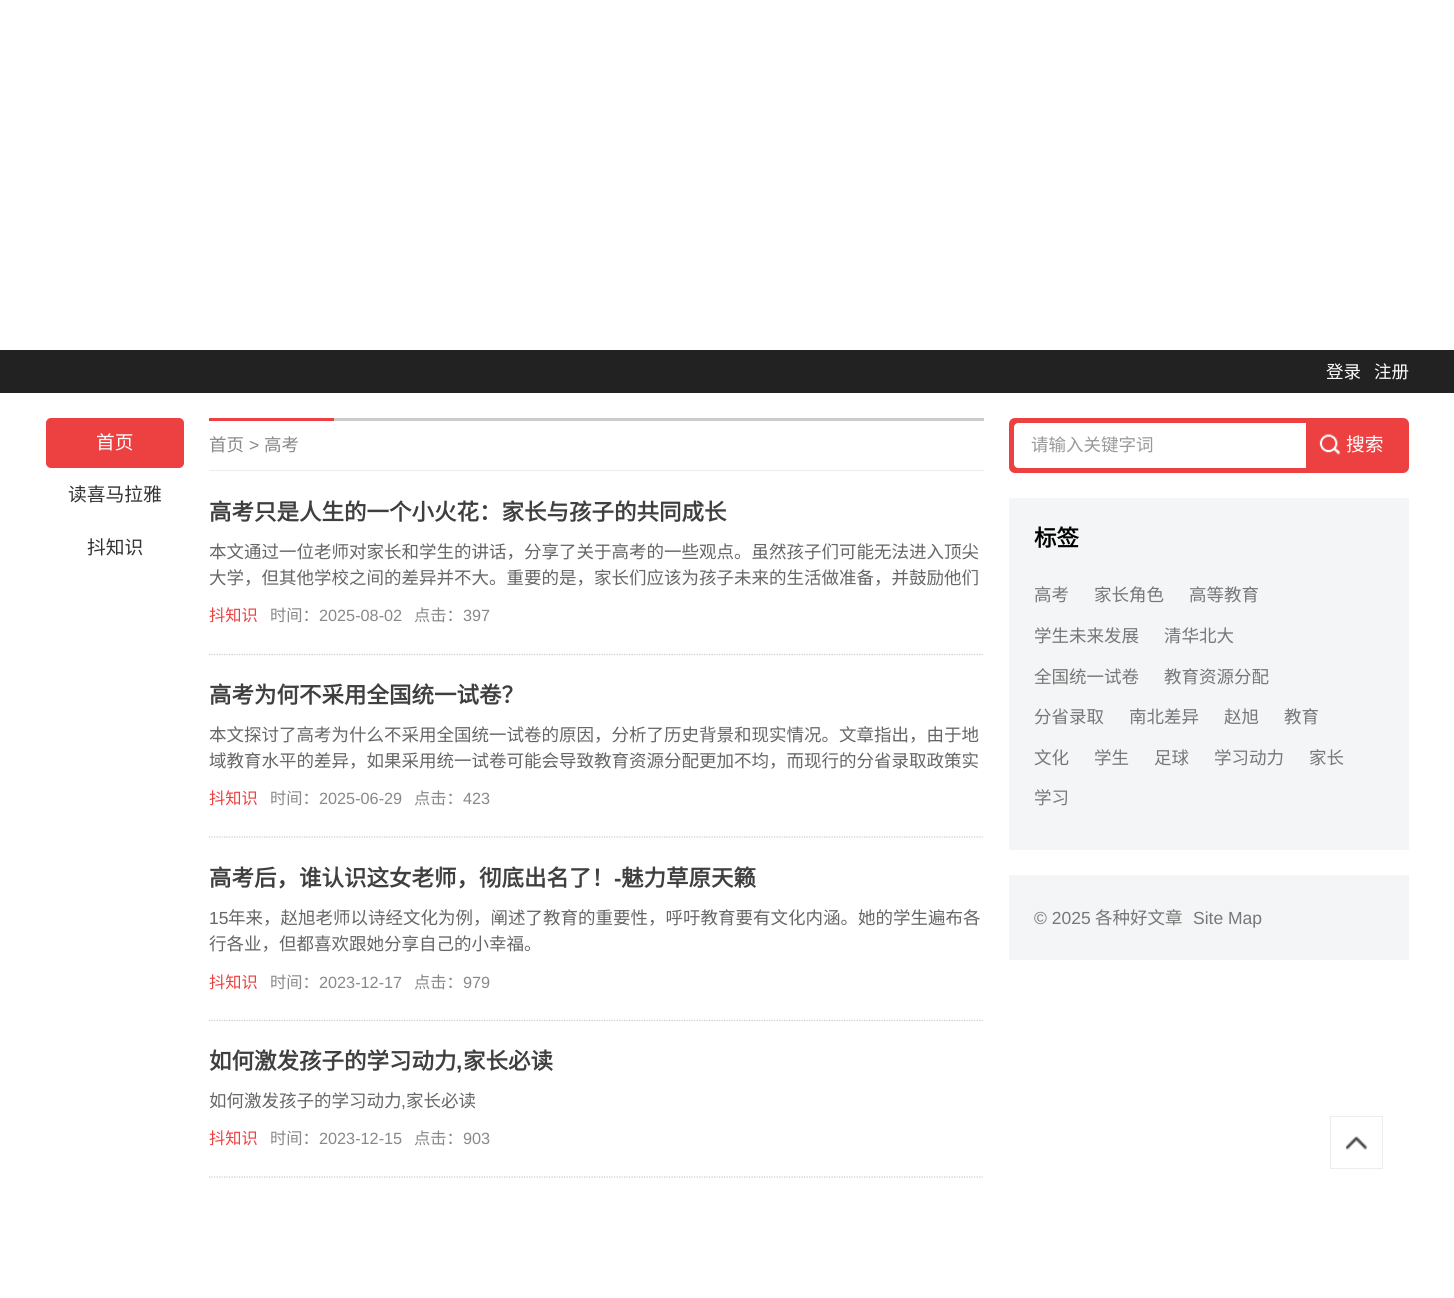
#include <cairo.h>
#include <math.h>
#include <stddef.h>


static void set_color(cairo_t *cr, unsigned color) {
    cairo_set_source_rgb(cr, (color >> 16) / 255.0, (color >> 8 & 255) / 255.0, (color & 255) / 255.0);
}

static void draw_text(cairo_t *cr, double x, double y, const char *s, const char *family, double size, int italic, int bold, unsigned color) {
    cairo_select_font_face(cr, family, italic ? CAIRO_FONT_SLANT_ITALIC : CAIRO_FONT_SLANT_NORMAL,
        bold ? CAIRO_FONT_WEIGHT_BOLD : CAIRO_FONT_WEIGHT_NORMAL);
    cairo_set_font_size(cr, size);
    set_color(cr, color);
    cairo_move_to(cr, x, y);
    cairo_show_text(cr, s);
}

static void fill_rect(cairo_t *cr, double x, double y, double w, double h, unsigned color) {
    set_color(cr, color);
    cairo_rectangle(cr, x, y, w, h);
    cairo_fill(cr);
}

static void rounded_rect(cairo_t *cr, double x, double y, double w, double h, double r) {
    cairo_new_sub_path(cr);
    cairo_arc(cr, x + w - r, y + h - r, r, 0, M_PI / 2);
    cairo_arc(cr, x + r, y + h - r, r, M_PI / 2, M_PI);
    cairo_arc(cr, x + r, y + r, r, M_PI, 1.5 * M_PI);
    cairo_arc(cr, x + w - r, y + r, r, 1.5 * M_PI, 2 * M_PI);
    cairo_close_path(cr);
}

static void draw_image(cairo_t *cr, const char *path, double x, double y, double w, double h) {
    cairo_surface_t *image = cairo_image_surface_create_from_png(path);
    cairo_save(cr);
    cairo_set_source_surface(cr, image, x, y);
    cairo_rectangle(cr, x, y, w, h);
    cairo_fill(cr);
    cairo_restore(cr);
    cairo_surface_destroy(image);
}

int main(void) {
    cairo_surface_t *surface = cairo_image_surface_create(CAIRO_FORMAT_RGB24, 1454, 1298);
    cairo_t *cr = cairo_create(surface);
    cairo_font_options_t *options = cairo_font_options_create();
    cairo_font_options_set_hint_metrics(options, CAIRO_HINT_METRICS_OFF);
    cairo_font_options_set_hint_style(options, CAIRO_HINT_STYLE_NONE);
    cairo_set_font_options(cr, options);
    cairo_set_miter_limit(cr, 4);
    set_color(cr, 0xFFFFFF);
    cairo_paint(cr);
    fill_rect(cr, 0, 350, 1454, 43, 0x222222);
    draw_text(cr, 1326, 378, "登录", "Noto Sans CJK SC", 17.5, 0, 0, 0xFFFFFF);
    draw_text(cr, 1374, 378, "注册", "Noto Sans CJK SC", 17.5, 0, 0, 0xFFFFFF);
    set_color(cr, 0xED4040);
    rounded_rect(cr, 46, 418, 138, 50, 5);
    cairo_fill(cr);
    draw_text(cr, 96, 449, "首页", "Noto Sans CJK SC", 18.75, 0, 0, 0xFFFFFF);
    draw_text(cr, 68, 501, "读喜马拉雅", "Noto Sans CJK SC", 18.75, 0, 0, 0x333333);
    draw_text(cr, 87, 554, "抖知识", "Noto Sans CJK SC", 18.75, 0, 0, 0x333333);
    fill_rect(cr, 334, 418, 650, 3, 0xCCCCCC);
    fill_rect(cr, 209, 470, 775, 1, 0xECECEC);
    fill_rect(cr, 209, 418, 125, 3, 0xED4040);
    draw_text(cr, 209, 451, "首页", "Noto Sans CJK SC", 17.5, 0, 0, 0x888888);
    draw_text(cr, 249, 451, ">", "Liberation Sans", 17.5, 0, 0, 0x888888);
    draw_text(cr, 264, 451, "高考", "Noto Sans CJK SC", 17.5, 0, 0, 0x888888);
    cairo_new_path(cr);
    cairo_move_to(cr, 209, 654.5);
    cairo_line_to(cr, 984, 654.5);
    set_color(cr, 0xCCCCCC);
    cairo_set_line_width(cr, 1.2);
    cairo_set_dash(cr, (double[]){1.25, 1.25}, 2, 0);
    cairo_stroke(cr);
    draw_text(cr, 209, 520, "高考只是人生的一个小火花：家长与孩子的共同成长", "Noto Sans CJK SC", 22.5, 0, 1, 0x3F3F3F);
    draw_text(cr, 209, 558, "本文通过一位老师对家长和学生的讲话，分享了关于高考的一些观点。虽然孩子们可能无法进入顶尖", "Noto Sans CJK SC", 17.5, 0, 0, 0x666666);
    draw_text(cr, 209, 584, "大学，但其他学校之间的差异并不大。重要的是，家长们应该为孩子未来的生活做准备，并鼓励他们", "Noto Sans CJK SC", 17.5, 0, 0, 0x666666);
    draw_text(cr, 209, 621, "抖知识", "Noto Sans CJK SC", 16.25, 0, 0, 0xED4040);
    draw_text(cr, 270, 621, "时间：", "Noto Sans CJK SC", 16.25, 0, 0, 0x888888);
    draw_text(cr, 319, 621, "2025-08-02", "Liberation Sans", 16.25, 0, 0, 0x888888);
    draw_text(cr, 414, 621, "点击：", "Noto Sans CJK SC", 16.25, 0, 0, 0x888888);
    draw_text(cr, 463, 621, "397", "Liberation Sans", 16.25, 0, 0, 0x888888);
    cairo_new_path(cr);
    cairo_move_to(cr, 209, 837);
    cairo_line_to(cr, 984, 837);
    set_color(cr, 0xCCCCCC);
    cairo_stroke(cr);
    draw_text(cr, 209, 703, "高考为何不采用全国统一试卷？", "Noto Sans CJK SC", 22.5, 0, 1, 0x3F3F3F);
    draw_text(cr, 209, 741, "本文探讨了高考为什么不采用全国统一试卷的原因，分析了历史背景和现实情况。文章指出，由于地", "Noto Sans CJK SC", 17.5, 0, 0, 0x666666);
    draw_text(cr, 209, 767, "域教育水平的差异，如果采用统一试卷可能会导致教育资源分配更加不均，而现行的分省录取政策实", "Noto Sans CJK SC", 17.5, 0, 0, 0x666666);
    draw_text(cr, 209, 804, "抖知识", "Noto Sans CJK SC", 16.25, 0, 0, 0xED4040);
    draw_text(cr, 270, 804, "时间：", "Noto Sans CJK SC", 16.25, 0, 0, 0x888888);
    draw_text(cr, 319, 804, "2025-06-29", "Liberation Sans", 16.25, 0, 0, 0x888888);
    draw_text(cr, 414, 804, "点击：", "Noto Sans CJK SC", 16.25, 0, 0, 0x888888);
    draw_text(cr, 463, 804, "423", "Liberation Sans", 16.25, 0, 0, 0x888888);
    cairo_new_path(cr);
    cairo_move_to(cr, 209, 1020.5);
    cairo_line_to(cr, 984, 1020.5);
    set_color(cr, 0xCCCCCC);
    cairo_stroke(cr);
    draw_text(cr, 209, 886, "高考后，谁认识这女老师，彻底出名了！", "Noto Sans CJK SC", 22.5, 0, 1, 0x3F3F3F);
    draw_text(cr, 614, 886, "-", "Liberation Sans", 22.5, 0, 1, 0x3F3F3F);
    draw_text(cr, 621, 886, "魅力草原天籁", "Noto Sans CJK SC", 22.5, 0, 1, 0x3F3F3F);
    draw_text(cr, 209, 924, "15", "Liberation Sans", 17.5, 0, 0, 0x666666);
    draw_text(cr, 228, 924, "年来，赵旭老师以诗经文化为例，阐述了教育的重要性，呼吁教育要有文化内涵。她的学生遍布各", "Noto Sans CJK SC", 17.5, 0, 0, 0x666666);
    draw_text(cr, 209, 950, "行各业，但都喜欢跟她分享自己的小幸福。", "Noto Sans CJK SC", 17.5, 0, 0, 0x666666);
    draw_text(cr, 209, 988, "抖知识", "Noto Sans CJK SC", 16.25, 0, 0, 0xED4040);
    draw_text(cr, 270, 988, "时间：", "Noto Sans CJK SC", 16.25, 0, 0, 0x888888);
    draw_text(cr, 319, 988, "2023-12-17", "Liberation Sans", 16.25, 0, 0, 0x888888);
    draw_text(cr, 414, 988, "点击：", "Noto Sans CJK SC", 16.25, 0, 0, 0x888888);
    draw_text(cr, 463, 988, "979", "Liberation Sans", 16.25, 0, 0, 0x888888);
    cairo_new_path(cr);
    cairo_move_to(cr, 209, 1177);
    cairo_line_to(cr, 984, 1177);
    set_color(cr, 0xCCCCCC);
    cairo_stroke(cr);
    draw_text(cr, 209, 1069, "如何激发孩子的学习动力", "Noto Sans CJK SC", 22.5, 0, 1, 0x3F3F3F);
    draw_text(cr, 456, 1069, ",", "Liberation Sans", 22.5, 0, 1, 0x3F3F3F);
    draw_text(cr, 463, 1069, "家长必读", "Noto Sans CJK SC", 22.5, 0, 1, 0x3F3F3F);
    draw_text(cr, 209, 1107, "如何激发孩子的学习动力", "Noto Sans CJK SC", 17.5, 0, 0, 0x666666);
    draw_text(cr, 401, 1107, ",", "Liberation Sans", 17.5, 0, 0, 0x666666);
    draw_text(cr, 406, 1107, "家长必读", "Noto Sans CJK SC", 17.5, 0, 0, 0x666666);
    draw_text(cr, 209, 1144, "抖知识", "Noto Sans CJK SC", 16.25, 0, 0, 0xED4040);
    draw_text(cr, 270, 1144, "时间：", "Noto Sans CJK SC", 16.25, 0, 0, 0x888888);
    draw_text(cr, 319, 1144, "2023-12-15", "Liberation Sans", 16.25, 0, 0, 0x888888);
    draw_text(cr, 414, 1144, "点击：", "Noto Sans CJK SC", 16.25, 0, 0, 0x888888);
    draw_text(cr, 463, 1144, "903", "Liberation Sans", 16.25, 0, 0, 0x888888);
    set_color(cr, 0xED4040);
    rounded_rect(cr, 1010.5, 419.5, 397, 52, 4.5);
    cairo_fill_preserve(cr);
    cairo_set_line_width(cr, 3);
    cairo_set_dash(cr, NULL, 0, 0);
    cairo_stroke(cr);
    set_color(cr, 0xFFFFFF);
    cairo_new_path(cr);
    cairo_move_to(cr, 1018, 423);
    cairo_line_to(cr, 1306, 423);
    cairo_line_to(cr, 1306, 468);
    cairo_line_to(cr, 1018, 468);
    cairo_curve_to(cr, 1016, 468, 1014, 466, 1014, 464);
    cairo_line_to(cr, 1014, 427);
    cairo_curve_to(cr, 1014, 425, 1016, 423, 1018, 423);
    cairo_close_path(cr);
    cairo_fill(cr);
    draw_text(cr, 1031, 451, "请输入关键字词", "Noto Sans CJK SC", 17.5, 0, 0, 0x999999);
    draw_image(cr, "assets/img1.png", 1319, 434, 22, 21);
    draw_text(cr, 1346, 451, "搜索", "Noto Sans CJK SC", 18.75, 0, 0, 0xFFFFFF);
    fill_rect(cr, 1009, 498, 400, 352, 0xF4F5F6);
    draw_text(cr, 1034, 546, "标签", "Noto Sans CJK SC", 22.5, 0, 1, 0x000000);
    draw_text(cr, 1034, 601, "高考", "Noto Sans CJK SC", 17.5, 0, 0, 0x777777);
    draw_text(cr, 1094, 601, "家长角色", "Noto Sans CJK SC", 17.5, 0, 0, 0x777777);
    draw_text(cr, 1189, 601, "高等教育", "Noto Sans CJK SC", 17.5, 0, 0, 0x777777);
    draw_text(cr, 1034, 642, "学生未来发展", "Noto Sans CJK SC", 17.5, 0, 0, 0x777777);
    draw_text(cr, 1164, 642, "清华北大", "Noto Sans CJK SC", 17.5, 0, 0, 0x777777);
    draw_text(cr, 1034, 683, "全国统一试卷", "Noto Sans CJK SC", 17.5, 0, 0, 0x777777);
    draw_text(cr, 1164, 683, "教育资源分配", "Noto Sans CJK SC", 17.5, 0, 0, 0x777777);
    draw_text(cr, 1034, 723, "分省录取", "Noto Sans CJK SC", 17.5, 0, 0, 0x777777);
    draw_text(cr, 1129, 723, "南北差异", "Noto Sans CJK SC", 17.5, 0, 0, 0x777777);
    draw_text(cr, 1224, 723, "赵旭", "Noto Sans CJK SC", 17.5, 0, 0, 0x777777);
    draw_text(cr, 1284, 723, "教育", "Noto Sans CJK SC", 17.5, 0, 0, 0x777777);
    draw_text(cr, 1034, 764, "文化", "Noto Sans CJK SC", 17.5, 0, 0, 0x777777);
    draw_text(cr, 1094, 764, "学生", "Noto Sans CJK SC", 17.5, 0, 0, 0x777777);
    draw_text(cr, 1154, 764, "足球", "Noto Sans CJK SC", 17.5, 0, 0, 0x777777);
    draw_text(cr, 1214, 764, "学习动力", "Noto Sans CJK SC", 17.5, 0, 0, 0x777777);
    draw_text(cr, 1309, 764, "家长", "Noto Sans CJK SC", 17.5, 0, 0, 0x777777);
    draw_text(cr, 1034, 804, "学习", "Noto Sans CJK SC", 17.5, 0, 0, 0x777777);
    fill_rect(cr, 1009, 875, 400, 85, 0xF4F5F6);
    draw_text(cr, 1034, 924, "© 2025", "Liberation Sans", 17.5, 0, 0, 0x777777);
    draw_text(cr, 1095, 924, "各种好文章", "Noto Sans CJK SC", 17.5, 0, 0, 0x777777);
    draw_text(cr, 1193, 924, "Site Map", "Liberation Sans", 17.5, 0, 0, 0x777777);
    draw_image(cr, "assets/img2.png", 1345, 1135, 23, 15);
    cairo_rectangle(cr, 1330.5, 1116.5, 52, 52);
    set_color(cr, 0xECECEC);
    cairo_set_line_width(cr, 1);
    cairo_stroke(cr);
    cairo_surface_write_to_png(surface, "output.png");
    cairo_font_options_destroy(options);
    cairo_destroy(cr);
    cairo_surface_destroy(surface);
    return 0;
}
